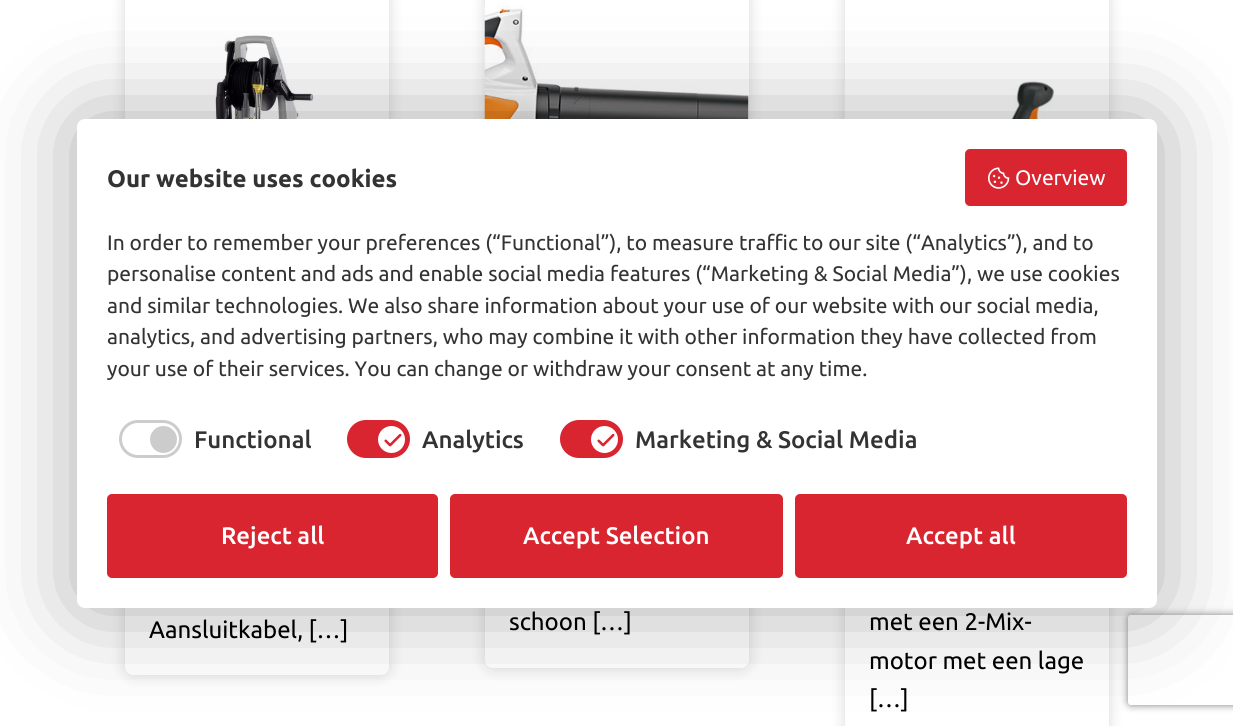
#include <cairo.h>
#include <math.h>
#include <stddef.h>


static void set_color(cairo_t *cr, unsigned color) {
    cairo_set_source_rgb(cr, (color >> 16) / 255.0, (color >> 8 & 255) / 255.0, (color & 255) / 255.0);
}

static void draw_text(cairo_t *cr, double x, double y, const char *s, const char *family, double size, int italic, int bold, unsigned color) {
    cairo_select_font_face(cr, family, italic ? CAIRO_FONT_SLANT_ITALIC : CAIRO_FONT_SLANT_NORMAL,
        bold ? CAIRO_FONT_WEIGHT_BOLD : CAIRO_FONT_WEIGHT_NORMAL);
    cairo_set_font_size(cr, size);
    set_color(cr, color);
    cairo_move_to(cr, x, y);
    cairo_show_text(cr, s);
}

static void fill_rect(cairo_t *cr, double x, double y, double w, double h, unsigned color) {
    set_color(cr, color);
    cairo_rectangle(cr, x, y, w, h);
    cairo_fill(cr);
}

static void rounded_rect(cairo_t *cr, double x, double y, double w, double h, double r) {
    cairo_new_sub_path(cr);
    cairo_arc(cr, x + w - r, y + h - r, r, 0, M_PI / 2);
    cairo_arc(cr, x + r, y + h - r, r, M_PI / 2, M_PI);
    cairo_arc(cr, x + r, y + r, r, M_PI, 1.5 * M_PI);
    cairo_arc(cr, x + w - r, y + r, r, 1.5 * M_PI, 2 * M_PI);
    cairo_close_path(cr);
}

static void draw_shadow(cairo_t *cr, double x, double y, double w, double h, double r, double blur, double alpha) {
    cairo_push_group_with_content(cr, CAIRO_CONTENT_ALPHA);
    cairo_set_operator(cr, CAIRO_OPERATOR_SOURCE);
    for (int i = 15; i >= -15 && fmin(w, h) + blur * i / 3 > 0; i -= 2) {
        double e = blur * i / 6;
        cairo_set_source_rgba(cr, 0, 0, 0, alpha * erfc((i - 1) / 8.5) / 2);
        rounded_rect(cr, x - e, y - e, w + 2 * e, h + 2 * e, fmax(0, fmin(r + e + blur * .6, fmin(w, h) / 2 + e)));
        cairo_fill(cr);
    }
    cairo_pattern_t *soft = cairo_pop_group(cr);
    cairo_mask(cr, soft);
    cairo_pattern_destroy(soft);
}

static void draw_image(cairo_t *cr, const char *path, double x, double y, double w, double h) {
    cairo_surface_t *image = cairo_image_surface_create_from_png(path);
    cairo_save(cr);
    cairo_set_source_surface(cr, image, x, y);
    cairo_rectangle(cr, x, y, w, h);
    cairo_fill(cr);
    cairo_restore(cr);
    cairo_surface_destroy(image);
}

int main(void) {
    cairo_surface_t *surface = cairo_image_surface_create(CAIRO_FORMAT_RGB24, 1233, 726);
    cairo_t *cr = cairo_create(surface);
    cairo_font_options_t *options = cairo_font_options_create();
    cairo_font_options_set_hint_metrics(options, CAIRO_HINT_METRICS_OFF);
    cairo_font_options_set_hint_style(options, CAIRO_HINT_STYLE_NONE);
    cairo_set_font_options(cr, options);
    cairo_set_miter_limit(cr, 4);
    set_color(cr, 0xFFFFFF);
    cairo_paint(cr);
    set_color(cr, 0x000000);
    draw_shadow(cr, 125, -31, 264, 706, 8, 7.5, 0.15);
    set_color(cr, 0xFFFFFF);
    rounded_rect(cr, 125, -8, 264, 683, 8);
    cairo_fill(cr);
    draw_image(cr, "assets/img3.png", 212, 35, 102, 84);
    set_color(cr, 0x000000);
    draw_shadow(cr, 485, -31, 264, 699, 8, 7.5, 0.15);
    set_color(cr, 0xFFFFFF);
    rounded_rect(cr, 485, -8, 264, 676, 8);
    cairo_fill(cr);
    draw_image(cr, "assets/img4.png", 484, 4, 265, 115);
    set_color(cr, 0x000000);
    draw_shadow(cr, 845, -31, 264, 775, 8, 7.5, 0.15);
    fill_rect(cr, 845, 0, 264, 726, 0xFFFFFF);
    draw_image(cr, "assets/img5.png", 844, 81, 265, 38);
    set_color(cr, 0x000000);
    draw_shadow(cr, 77, 119, 1080, 489, 8, 48, 0.33);
    cairo_save(cr);
    cairo_set_fill_rule(cr, CAIRO_FILL_RULE_EVEN_ODD);
    cairo_new_path(cr);
    cairo_move_to(cr, 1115, 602);
    cairo_line_to(cr, 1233, 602);
    cairo_line_to(cr, 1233, 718);
    cairo_line_to(cr, 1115, 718);
    cairo_close_path(cr);
    cairo_move_to(cr, 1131, 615);
    cairo_line_to(cr, 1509, 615);
    cairo_curve_to(cr, 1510.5, 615, 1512, 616.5, 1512, 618);
    cairo_line_to(cr, 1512, 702);
    cairo_curve_to(cr, 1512, 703.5, 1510.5, 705, 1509, 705);
    cairo_line_to(cr, 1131, 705);
    cairo_curve_to(cr, 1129.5, 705, 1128, 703.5, 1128, 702);
    cairo_line_to(cr, 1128, 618);
    cairo_curve_to(cr, 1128, 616.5, 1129.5, 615, 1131, 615);
    cairo_close_path(cr);
    cairo_clip(cr);
    set_color(cr, 0x808080);
    draw_shadow(cr, 1128, 615, 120, 90, 3, 4, 1);
    cairo_restore(cr);
    set_color(cr, 0xFFFFFF);
    rounded_rect(cr, 77, 119, 1080, 489, 8);
    cairo_fill(cr);
    draw_text(cr, 107, 187, "Our website uses cookies", "Ubuntu", 24, 0, 1, 0x333333);
    set_color(cr, 0xD92530);
    rounded_rect(cr, 965, 149, 162, 57, 5);
    cairo_fill(cr);
    draw_image(cr, "assets/img1.png", 988, 167, 22, 22);
    draw_text(cr, 1015, 185, "Overview", "Ubuntu", 21, 0, 0, 0xFFFFFF);
    draw_text(cr, 107, 250, "In order to remember your preferences (“Functional”), to measure traffic to our site (“Analytics”), and to", "Ubuntu", 21, 0, 0, 0x333333);
    draw_text(cr, 107, 281, "personalise content and ads and enable social media features (“Marketing & Social Media”), we use cookies", "Ubuntu", 21, 0, 0, 0x333333);
    draw_text(cr, 107, 313, "and similar technologies. We also share information about your use of our website with our social media,", "Ubuntu", 21, 0, 0, 0x333333);
    draw_text(cr, 107, 344, "analytics, and advertising partners, who may combine it with other information they have collected from", "Ubuntu", 21, 0, 0, 0x333333);
    draw_text(cr, 107, 376, "your use of their services. You can change or withdraw your consent at any time.", "Ubuntu", 21, 0, 0, 0x333333);
    rounded_rect(cr, 120.5, 421.5, 60, 35, 17.5);
    set_color(cr, 0xCCCCCC);
    cairo_set_line_width(cr, 3);
    cairo_stroke(cr);
    cairo_arc(cr, 163.5, 439.5, 13.5, 0, 2 * M_PI);
    cairo_fill(cr);
    draw_text(cr, 194, 448, "Functional", "Ubuntu Medium", 24, 0, 0, 0x333333);
    set_color(cr, 0xD92530);
    rounded_rect(cr, 348.5, 421.5, 60, 35, 17.5);
    cairo_fill_preserve(cr);
    cairo_stroke(cr);
    set_color(cr, 0xFFFFFF);
    cairo_arc(cr, 391.5, 439.5, 13.5, 0, 2 * M_PI);
    cairo_fill(cr);
    draw_image(cr, "assets/img2.png", 384, 433, 18, 14);
    draw_text(cr, 422, 448, "Analytics", "Ubuntu Medium", 24, 0, 0, 0x333333);
    set_color(cr, 0xD92530);
    rounded_rect(cr, 561.5, 421.5, 60, 35, 17.5);
    cairo_fill_preserve(cr);
    cairo_stroke(cr);
    set_color(cr, 0xFFFFFF);
    cairo_arc(cr, 604.5, 439.5, 13.5, 0, 2 * M_PI);
    cairo_fill(cr);
    draw_image(cr, "assets/img2.png", 597, 433, 18, 14);
    draw_text(cr, 635, 448, "Marketing & Social Media", "Ubuntu Medium", 24, 0, 0, 0x333333);
    set_color(cr, 0xD92530);
    rounded_rect(cr, 107, 494, 331, 84, 5);
    cairo_fill(cr);
    draw_text(cr, 221, 544, "Reject all", "Ubuntu Medium", 24, 0, 0, 0xFFFFFF);
    set_color(cr, 0xD92530);
    rounded_rect(cr, 450, 494, 333, 84, 5);
    cairo_fill(cr);
    draw_text(cr, 523, 544, "Accept Selection", "Ubuntu Medium", 24, 0, 0, 0xFFFFFF);
    set_color(cr, 0xD92530);
    rounded_rect(cr, 795, 494, 332, 84, 5);
    cairo_fill(cr);
    draw_text(cr, 906, 544, "Accept all", "Ubuntu Medium", 24, 0, 0, 0xFFFFFF);
    draw_text(cr, 149, 638, "Aansluitkabel, […]", "Ubuntu", 24, 0, 0, 0x000000);
    draw_text(cr, 509, 630, "schoon […]", "Ubuntu", 24, 0, 0, 0x000000);
    draw_text(cr, 869, 630, "met een 2-Mix-", "Ubuntu", 24, 0, 0, 0x000000);
    draw_text(cr, 869, 669, "motor met een lage", "Ubuntu", 24, 0, 0, 0x000000);
    draw_text(cr, 869, 707, "[…]", "Ubuntu", 24, 0, 0, 0x000000);
    cairo_surface_write_to_png(surface, "output.png");
    cairo_font_options_destroy(options);
    cairo_destroy(cr);
    cairo_surface_destroy(surface);
    return 0;
}
